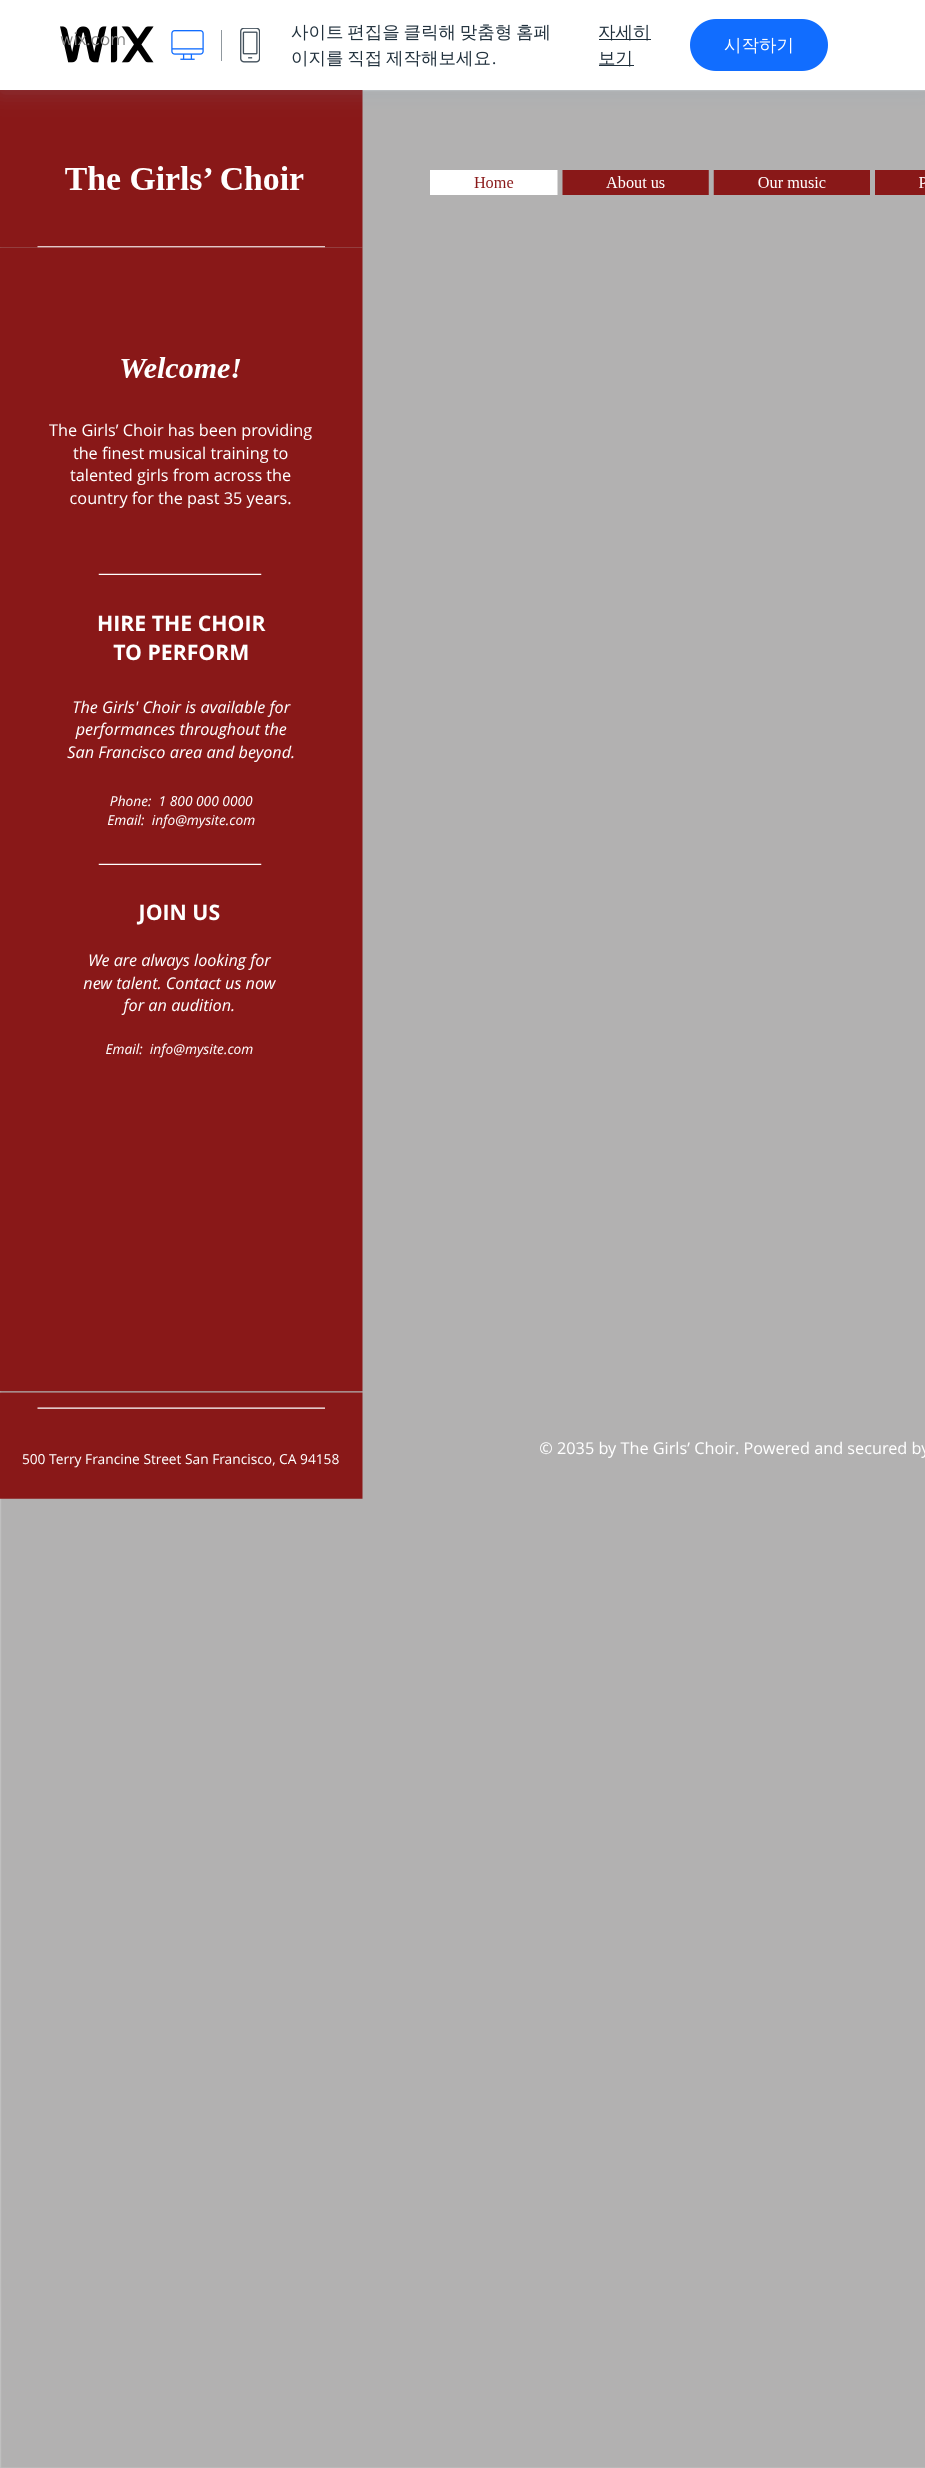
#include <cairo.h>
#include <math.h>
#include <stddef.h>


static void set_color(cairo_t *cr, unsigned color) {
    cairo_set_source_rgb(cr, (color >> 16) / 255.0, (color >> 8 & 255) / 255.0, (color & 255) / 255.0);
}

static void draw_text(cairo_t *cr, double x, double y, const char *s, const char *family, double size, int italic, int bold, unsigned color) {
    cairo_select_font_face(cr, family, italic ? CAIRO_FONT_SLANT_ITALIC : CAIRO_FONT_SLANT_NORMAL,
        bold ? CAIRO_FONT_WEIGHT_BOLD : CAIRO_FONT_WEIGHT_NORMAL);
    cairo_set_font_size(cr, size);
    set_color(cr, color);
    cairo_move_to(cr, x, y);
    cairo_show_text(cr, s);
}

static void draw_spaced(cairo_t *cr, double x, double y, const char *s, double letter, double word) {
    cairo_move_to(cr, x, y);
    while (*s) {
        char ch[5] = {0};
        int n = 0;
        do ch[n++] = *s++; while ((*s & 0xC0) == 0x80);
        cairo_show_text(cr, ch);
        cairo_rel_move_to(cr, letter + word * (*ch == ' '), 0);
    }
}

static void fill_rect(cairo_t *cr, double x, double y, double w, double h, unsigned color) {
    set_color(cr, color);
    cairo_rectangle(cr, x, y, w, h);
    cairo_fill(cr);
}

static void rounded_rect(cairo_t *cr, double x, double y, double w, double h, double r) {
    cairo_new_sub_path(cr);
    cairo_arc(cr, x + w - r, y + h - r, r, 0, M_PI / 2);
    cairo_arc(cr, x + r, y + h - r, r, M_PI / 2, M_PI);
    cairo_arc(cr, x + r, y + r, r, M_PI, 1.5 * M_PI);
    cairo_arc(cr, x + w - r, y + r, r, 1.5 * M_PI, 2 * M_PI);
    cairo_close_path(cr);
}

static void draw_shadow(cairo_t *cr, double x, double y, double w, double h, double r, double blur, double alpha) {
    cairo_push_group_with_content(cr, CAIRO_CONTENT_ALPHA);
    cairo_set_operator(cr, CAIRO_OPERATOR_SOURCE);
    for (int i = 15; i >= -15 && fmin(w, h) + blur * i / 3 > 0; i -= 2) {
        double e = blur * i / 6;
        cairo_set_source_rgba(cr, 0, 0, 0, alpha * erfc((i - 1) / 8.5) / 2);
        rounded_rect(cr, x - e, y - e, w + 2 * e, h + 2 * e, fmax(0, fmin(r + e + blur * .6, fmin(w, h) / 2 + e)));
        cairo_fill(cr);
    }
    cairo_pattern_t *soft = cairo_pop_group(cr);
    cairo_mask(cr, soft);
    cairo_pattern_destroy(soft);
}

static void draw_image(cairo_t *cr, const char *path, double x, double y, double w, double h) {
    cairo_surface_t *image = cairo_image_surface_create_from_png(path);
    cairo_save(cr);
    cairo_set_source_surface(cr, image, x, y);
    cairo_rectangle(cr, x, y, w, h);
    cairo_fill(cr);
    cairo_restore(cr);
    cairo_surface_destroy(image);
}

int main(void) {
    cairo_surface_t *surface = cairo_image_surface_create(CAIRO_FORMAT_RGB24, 925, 2468);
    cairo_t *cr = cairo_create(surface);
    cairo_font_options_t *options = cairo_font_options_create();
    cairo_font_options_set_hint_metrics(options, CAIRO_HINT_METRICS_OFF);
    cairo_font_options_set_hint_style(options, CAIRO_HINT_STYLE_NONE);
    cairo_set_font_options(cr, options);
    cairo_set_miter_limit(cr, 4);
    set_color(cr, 0xFFFFFF);
    cairo_paint(cr);
    draw_image(cr, "assets/img4.png", 0, 90, 925, 2378);
    set_color(cr, 0x81A2B6);
    draw_shadow(cr, 0, 3, 925, 90, 0, 11, 0.2);
    fill_rect(cr, 0, 0, 925, 90, 0xFFFFFF);
    draw_image(cr, "assets/img1.png", 60, 26, 94, 37);
    draw_text(cr, 60, 45, "wix.com", "Wix Madefor Text", 17.5, 0, 0, 0x868686);
    draw_image(cr, "assets/img2.png", 171, 30, 33, 30);
    fill_rect(cr, 221, 30, 1, 31, 0x90989E);
    draw_image(cr, "assets/img3.png", 240, 28, 20, 35);
    cairo_select_font_face(cr, "WenQuanYi Zen Hei Medium", CAIRO_FONT_SLANT_NORMAL, CAIRO_FONT_WEIGHT_NORMAL);
    set_color(cr, 0x20303C);
    draw_spaced(cr, 291, 38, "사이트 편집을 클릭해 맞춤형 홈페", 0, -1.5);
    draw_spaced(cr, 291, 64, "이지를 직접 제작해보세요", 0, -1.5);
    draw_text(cr, 492, 64, ".", "Wix Madefor Text", 17.5, 0, 0, 0x20303C);
    fill_rect(cr, 599, 39, 52, 1, 0x20303C);
    draw_text(cr, 598, 38, "자세히", "WenQuanYi Zen Hei Medium", 17.5, 0, 0, 0x20303C);
    fill_rect(cr, 599, 65, 35, 1, 0x20303C);
    draw_text(cr, 598, 64, "보기", "WenQuanYi Zen Hei Medium", 17.5, 0, 0, 0x20303C);
    set_color(cr, 0x116DFF);
    rounded_rect(cr, 690, 19, 138, 52, 26);
    cairo_fill(cr);
    draw_text(cr, 724, 51, "시작하기", "WenQuanYi Zen Hei Medium", 17.5, 0, 0, 0xFFFFFF);
    cairo_surface_write_to_png(surface, "output.png");
    cairo_font_options_destroy(options);
    cairo_destroy(cr);
    cairo_surface_destroy(surface);
    return 0;
}
